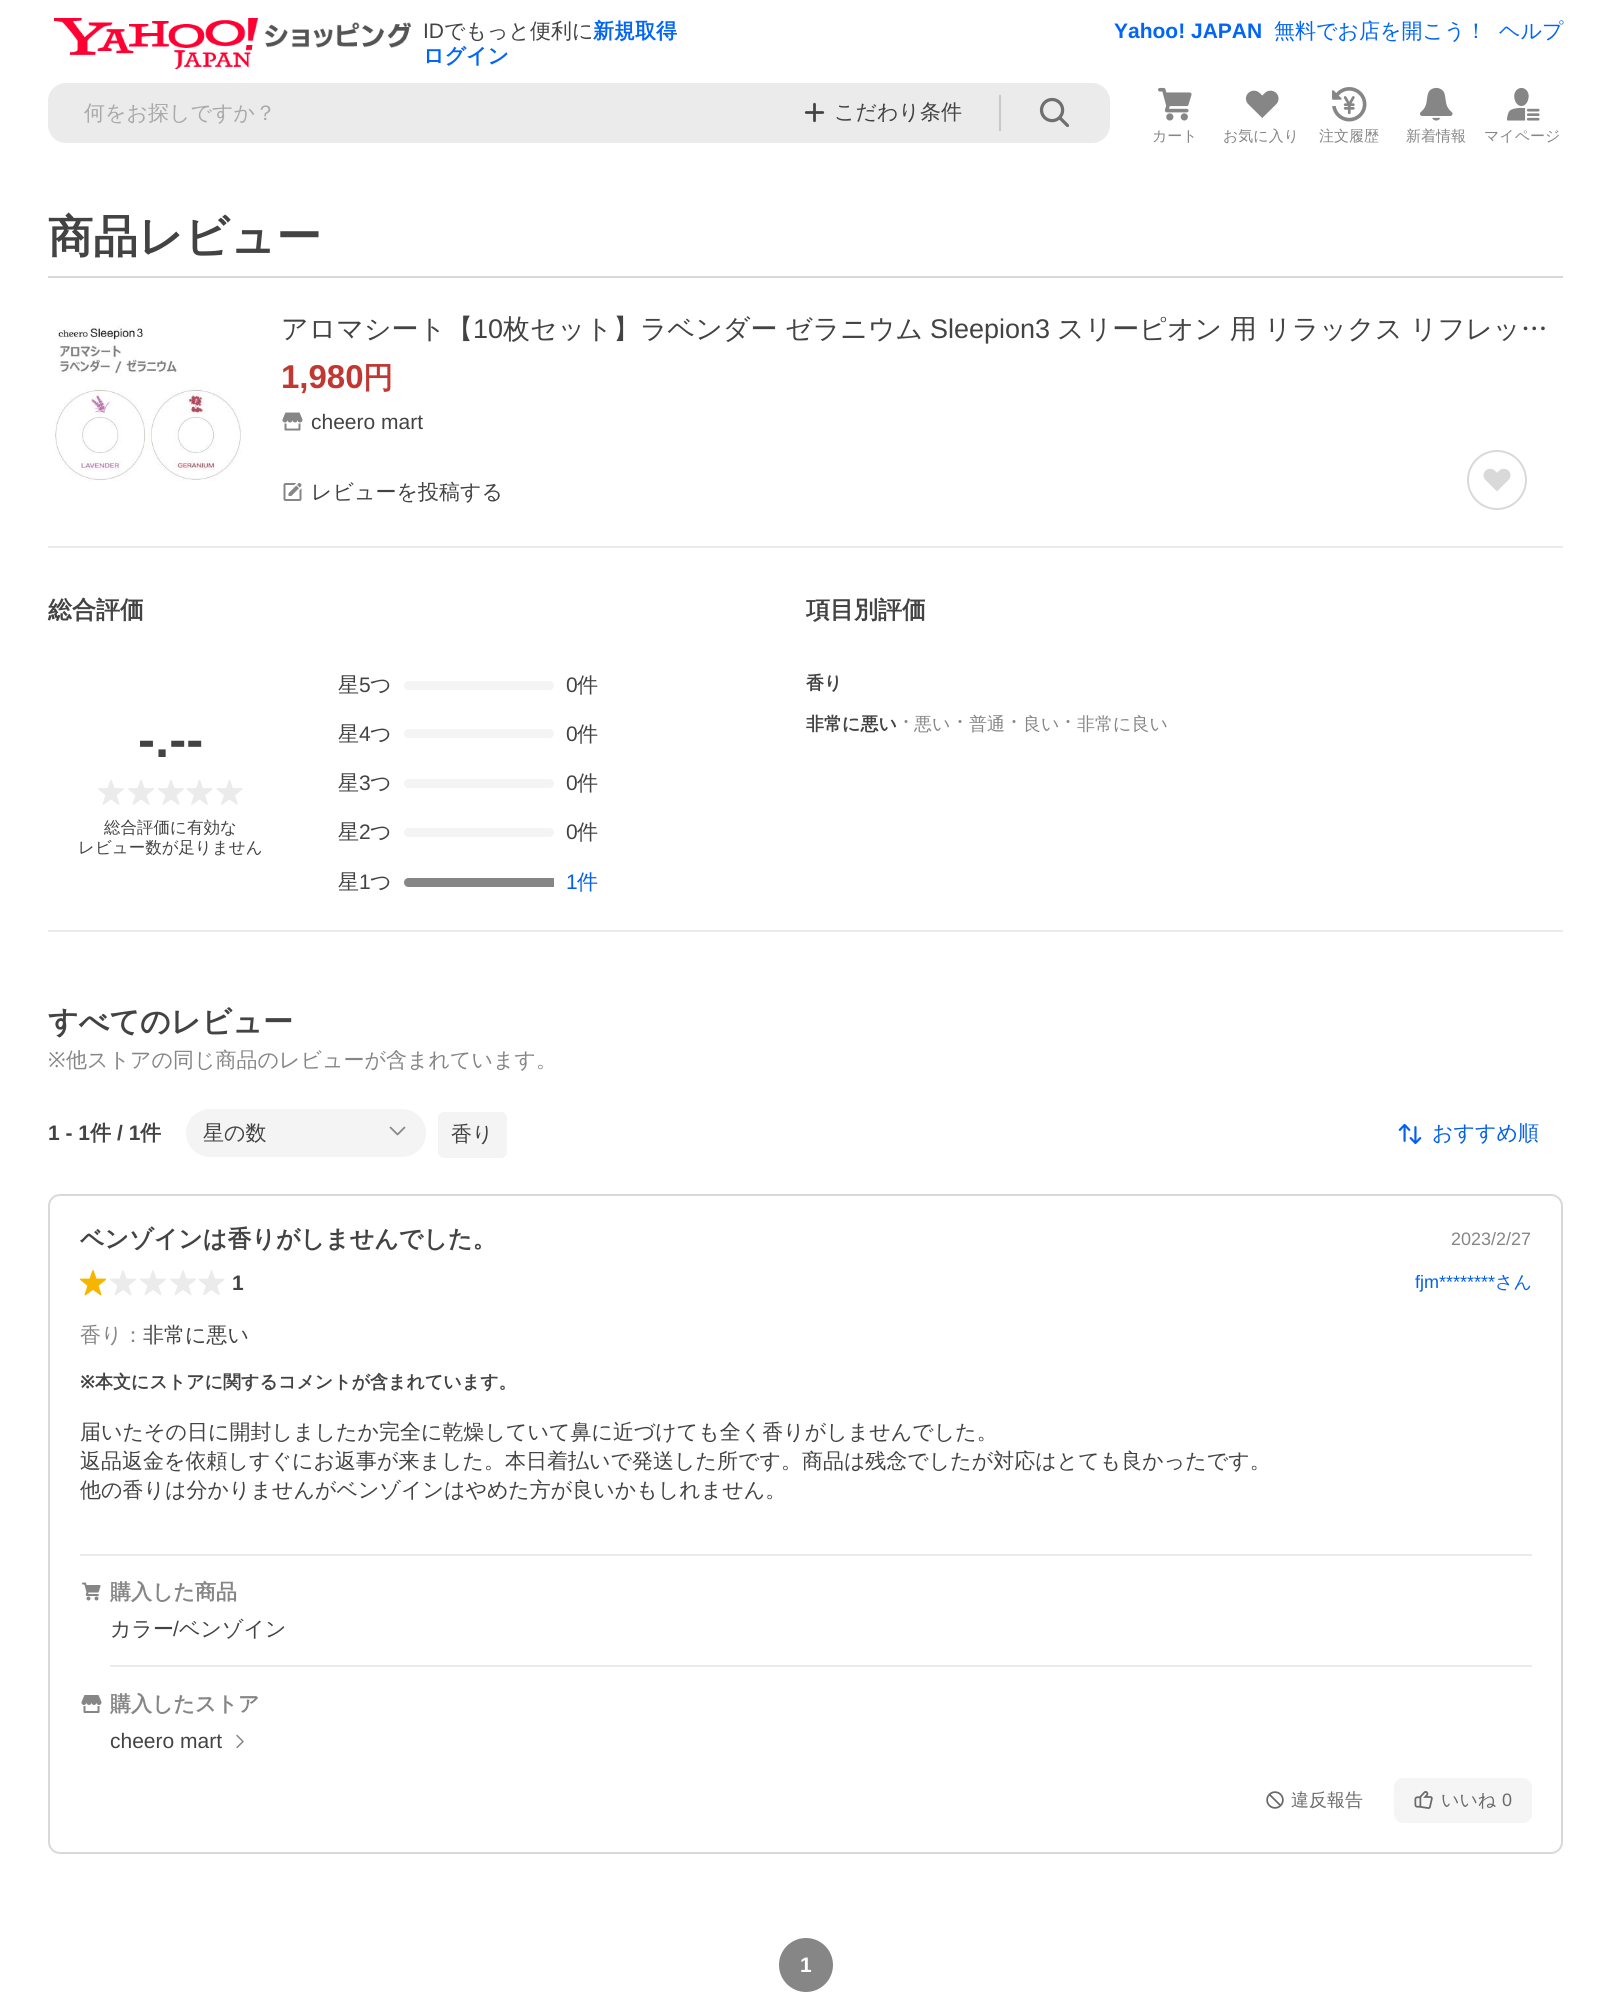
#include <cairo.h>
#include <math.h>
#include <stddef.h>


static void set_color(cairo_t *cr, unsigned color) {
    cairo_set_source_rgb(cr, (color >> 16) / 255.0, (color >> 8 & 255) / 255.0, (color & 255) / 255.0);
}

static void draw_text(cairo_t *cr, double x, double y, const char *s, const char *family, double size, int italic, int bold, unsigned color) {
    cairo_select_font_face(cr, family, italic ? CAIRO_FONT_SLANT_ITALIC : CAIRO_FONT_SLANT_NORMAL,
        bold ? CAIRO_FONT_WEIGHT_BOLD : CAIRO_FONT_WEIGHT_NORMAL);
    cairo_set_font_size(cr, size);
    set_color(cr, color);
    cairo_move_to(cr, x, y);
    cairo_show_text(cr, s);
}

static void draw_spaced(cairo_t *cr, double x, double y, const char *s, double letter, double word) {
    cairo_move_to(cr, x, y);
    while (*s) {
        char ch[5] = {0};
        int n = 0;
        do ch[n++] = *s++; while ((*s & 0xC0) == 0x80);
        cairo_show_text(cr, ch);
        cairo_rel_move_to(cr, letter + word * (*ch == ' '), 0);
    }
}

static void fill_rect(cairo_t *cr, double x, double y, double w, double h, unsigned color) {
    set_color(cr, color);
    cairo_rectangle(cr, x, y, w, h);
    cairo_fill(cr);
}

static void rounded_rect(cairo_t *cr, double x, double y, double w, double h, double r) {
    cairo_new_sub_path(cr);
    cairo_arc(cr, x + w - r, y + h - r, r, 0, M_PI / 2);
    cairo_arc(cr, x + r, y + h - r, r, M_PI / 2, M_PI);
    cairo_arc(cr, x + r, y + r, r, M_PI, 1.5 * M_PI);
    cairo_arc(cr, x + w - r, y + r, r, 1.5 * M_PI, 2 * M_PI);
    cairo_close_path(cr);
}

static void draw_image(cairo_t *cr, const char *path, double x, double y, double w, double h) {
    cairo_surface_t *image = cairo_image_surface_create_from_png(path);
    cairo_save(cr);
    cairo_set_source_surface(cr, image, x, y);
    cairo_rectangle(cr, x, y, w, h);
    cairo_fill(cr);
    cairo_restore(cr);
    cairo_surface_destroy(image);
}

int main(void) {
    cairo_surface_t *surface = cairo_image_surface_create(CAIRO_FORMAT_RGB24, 1611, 2007);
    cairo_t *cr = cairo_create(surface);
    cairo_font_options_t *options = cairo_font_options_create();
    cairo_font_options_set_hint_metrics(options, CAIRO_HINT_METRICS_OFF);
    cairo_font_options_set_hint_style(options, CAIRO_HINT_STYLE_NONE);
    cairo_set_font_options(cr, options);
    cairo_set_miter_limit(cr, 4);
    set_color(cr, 0xFFFFFF);
    cairo_paint(cr);
    draw_image(cr, "assets/img1.png", 54, 18, 357, 51);
    draw_text(cr, 423, 38, "ID", "Liberation Sans", 21, 0, 0, 0x434343);
    draw_text(cr, 444, 38, "でもっと便利に", "WenQuanYi Zen Hei Medium", 21, 0, 0, 0x434343);
    draw_text(cr, 593, 38, "新規取得", "WenQuanYi Zen Hei", 21, 0, 1, 0x0265F6);
    draw_text(cr, 423, 63, "ログイン", "WenQuanYi Zen Hei", 21, 0, 1, 0x0265F6);
    draw_text(cr, 1114, 38, "Yahoo! JAPAN", "Liberation Sans", 21, 0, 1, 0x0265F6);
    draw_text(cr, 1274, 38, "無料でお店を開こう！", "WenQuanYi Zen Hei Medium", 21, 0, 0, 0x0265F6);
    draw_text(cr, 1499, 38, "ヘルプ", "WenQuanYi Zen Hei Medium", 21, 0, 0, 0x0265F6);
    set_color(cr, 0xEBEBEB);
    rounded_rect(cr, 48, 83, 1062, 60, 18);
    cairo_fill(cr);
    draw_text(cr, 84, 120, "何をお探しですか？", "WenQuanYi Zen Hei Medium", 21, 0, 0, 0xA9A9A9);
    draw_image(cr, "assets/img2.png", 804, 102, 21, 21);
    draw_text(cr, 834, 119, "こだわり条件", "WenQuanYi Zen Hei Medium", 21, 0, 0, 0x434343);
    fill_rect(cr, 999, 95, 2, 36, 0xC8C8C8);
    draw_image(cr, "assets/img3.png", 1039, 97, 31, 31);
    draw_image(cr, "assets/img4.png", 1158, 87, 34, 34);
    draw_text(cr, 1152, 141, "カート", "WenQuanYi Zen Hei Medium", 15, 0, 0, 0x868686);
    draw_image(cr, "assets/img5.png", 1245, 90, 34, 28);
    draw_text(cr, 1223, 141, "お気に入り", "WenQuanYi Zen Hei Medium", 15, 0, 0, 0x868686);
    draw_image(cr, "assets/img6.png", 1332, 87, 35, 35);
    draw_text(cr, 1319, 141, "注文履歴", "WenQuanYi Zen Hei Medium", 15, 0, 0, 0x868686);
    draw_image(cr, "assets/img7.png", 1420, 87, 33, 34);
    draw_text(cr, 1406, 141, "新着情報", "WenQuanYi Zen Hei Medium", 15, 0, 0, 0x868686);
    draw_image(cr, "assets/img8.png", 1507, 87, 33, 34);
    draw_text(cr, 1484, 141, "マイページ", "WenQuanYi Zen Hei Medium", 15, 0, 0, 0x868686);
    fill_rect(cr, 48, 276, 1515, 2, 0xD9D9D9);
    draw_text(cr, 48, 252, "商品レビュー", "WenQuanYi Zen Hei", 45, 0, 1, 0x434343);
    draw_image(cr, "assets/img9.png", 55, 325, 187, 156);
    draw_text(cr, 281, 338, "アロマシート【", "WenQuanYi Zen Hei Medium", 27, 0, 0, 0x434343);
    draw_text(cr, 473, 338, "10", "Liberation Sans", 27, 0, 0, 0x434343);
    cairo_select_font_face(cr, "WenQuanYi Zen Hei Medium", CAIRO_FONT_SLANT_NORMAL, CAIRO_FONT_WEIGHT_NORMAL);
    draw_spaced(cr, 503, 338, "枚セット】ラベンダー ゼラニウム", 0, -0.5);
    draw_text(cr, 930, 338, "Sleepion3", "Liberation Sans", 27, 0, 0, 0x434343);
    cairo_select_font_face(cr, "WenQuanYi Zen Hei Medium", CAIRO_FONT_SLANT_NORMAL, CAIRO_FONT_WEIGHT_NORMAL);
    draw_spaced(cr, 1057, 338, "スリーピオン 用 リラックス リフレッ…", 0, -0.5);
    draw_text(cr, 281, 388, "1,980", "Liberation Sans", 33, 0, 1, 0xC13832);
    draw_text(cr, 363, 388, "円", "WenQuanYi Zen Hei", 30, 0, 1, 0xC13832);
    draw_image(cr, "assets/img10.png", 282, 412, 21, 19);
    draw_text(cr, 311, 429, "cheero mart", "Liberation Sans", 21, 0, 0, 0x434343);
    draw_image(cr, "assets/img11.png", 283, 483, 19, 18);
    draw_text(cr, 311, 499, "レビューを投稿する", "WenQuanYi Zen Hei Medium", 21, 0, 0, 0x434343);
    cairo_new_path(cr);
    cairo_arc(cr, 1497, 480, 29, 0, 2 * M_PI);
    set_color(cr, 0xD9D9D9);
    cairo_stroke(cr);
    draw_image(cr, "assets/img12.png", 1483, 468, 28, 23);
    fill_rect(cr, 48, 546, 1515, 2, 0xEBEBEB);
    draw_text(cr, 48, 618, "総合評価", "WenQuanYi Zen Hei", 24, 0, 1, 0x434343);
    draw_text(cr, 138, 757, "-.--", "Liberation Sans", 51, 0, 1, 0x434343);
    draw_image(cr, "assets/img13.png", 98, 780, 26, 25);
    draw_image(cr, "assets/img13.png", 128, 780, 26, 25);
    draw_image(cr, "assets/img13.png", 158, 780, 26, 25);
    draw_image(cr, "assets/img14.png", 186, 779, 27, 26);
    draw_image(cr, "assets/img14.png", 216, 779, 27, 26);
    draw_text(cr, 104, 833, "総合評価に有効な", "WenQuanYi Zen Hei Medium", 16.5, 0, 0, 0x434343);
    draw_text(cr, 78, 853, "レビュー数が足りません", "WenQuanYi Zen Hei Medium", 16.5, 0, 0, 0x434343);
    draw_text(cr, 338, 692, "星", "WenQuanYi Zen Hei Medium", 21, 0, 0, 0x434343);
    draw_text(cr, 359, 692, "5", "Liberation Sans", 21, 0, 0, 0x434343);
    draw_text(cr, 370, 692, "つ", "WenQuanYi Zen Hei Medium", 21, 0, 0, 0x434343);
    set_color(cr, 0xF4F4F4);
    rounded_rect(cr, 404, 681, 150, 9, 4.5);
    cairo_fill(cr);
    draw_text(cr, 566, 692, "0", "Liberation Sans", 21, 0, 0, 0x434343);
    draw_text(cr, 577, 692, "件", "WenQuanYi Zen Hei Medium", 21, 0, 0, 0x434343);
    draw_text(cr, 338, 741, "星", "WenQuanYi Zen Hei Medium", 21, 0, 0, 0x434343);
    draw_text(cr, 359, 741, "4", "Liberation Sans", 21, 0, 0, 0x434343);
    draw_text(cr, 370, 741, "つ", "WenQuanYi Zen Hei Medium", 21, 0, 0, 0x434343);
    set_color(cr, 0xF4F4F4);
    rounded_rect(cr, 404, 729, 150, 9, 4.5);
    cairo_fill(cr);
    draw_text(cr, 566, 741, "0", "Liberation Sans", 21, 0, 0, 0x434343);
    draw_text(cr, 577, 741, "件", "WenQuanYi Zen Hei Medium", 21, 0, 0, 0x434343);
    draw_text(cr, 338, 790, "星", "WenQuanYi Zen Hei Medium", 21, 0, 0, 0x434343);
    draw_text(cr, 359, 790, "3", "Liberation Sans", 21, 0, 0, 0x434343);
    draw_text(cr, 370, 790, "つ", "WenQuanYi Zen Hei Medium", 21, 0, 0, 0x434343);
    set_color(cr, 0xF4F4F4);
    rounded_rect(cr, 404, 779, 150, 9, 4.5);
    cairo_fill(cr);
    draw_text(cr, 566, 790, "0", "Liberation Sans", 21, 0, 0, 0x434343);
    draw_text(cr, 577, 790, "件", "WenQuanYi Zen Hei Medium", 21, 0, 0, 0x434343);
    draw_text(cr, 338, 839, "星", "WenQuanYi Zen Hei Medium", 21, 0, 0, 0x434343);
    draw_text(cr, 359, 839, "2", "Liberation Sans", 21, 0, 0, 0x434343);
    draw_text(cr, 370, 839, "つ", "WenQuanYi Zen Hei Medium", 21, 0, 0, 0x434343);
    set_color(cr, 0xF4F4F4);
    rounded_rect(cr, 404, 828, 150, 9, 4.5);
    cairo_fill(cr);
    draw_text(cr, 566, 839, "0", "Liberation Sans", 21, 0, 0, 0x434343);
    draw_text(cr, 577, 839, "件", "WenQuanYi Zen Hei Medium", 21, 0, 0, 0x434343);
    draw_text(cr, 338, 889, "星", "WenQuanYi Zen Hei Medium", 21, 0, 0, 0x434343);
    draw_text(cr, 359, 889, "1", "Liberation Sans", 21, 0, 0, 0x434343);
    draw_text(cr, 370, 889, "つ", "WenQuanYi Zen Hei Medium", 21, 0, 0, 0x434343);
    set_color(cr, 0x868686);
    cairo_new_path(cr);
    cairo_move_to(cr, 408.5, 878);
    cairo_line_to(cr, 554, 878);
    cairo_line_to(cr, 554, 887);
    cairo_line_to(cr, 408.5, 887);
    cairo_curve_to(cr, 406, 887, 404, 885, 404, 882.5);
    cairo_curve_to(cr, 404, 880, 406, 878, 408.5, 878);
    cairo_close_path(cr);
    cairo_fill(cr);
    draw_text(cr, 566, 889, "1", "Liberation Sans", 21, 0, 0, 0x0260EA);
    draw_text(cr, 577, 889, "件", "WenQuanYi Zen Hei Medium", 21, 0, 0, 0x0260EA);
    draw_text(cr, 806, 618, "項目別評価", "WenQuanYi Zen Hei", 24, 0, 1, 0x434343);
    draw_text(cr, 806, 689, "香り", "WenQuanYi Zen Hei", 18, 0, 1, 0x434343);
    draw_text(cr, 806, 730, "非常に悪い", "WenQuanYi Zen Hei", 18, 0, 1, 0x434343);
    set_color(cr, 0x868686);
    cairo_new_path(cr);
    cairo_arc(cr, 906, 721.5, 1.5, 0, 2 * M_PI);
    cairo_fill(cr);
    draw_text(cr, 914, 730, "悪い", "WenQuanYi Zen Hei Medium", 18, 0, 0, 0x868686);
    cairo_new_path(cr);
    cairo_arc(cr, 960, 721.5, 1.5, 0, 2 * M_PI);
    cairo_fill(cr);
    draw_text(cr, 969, 730, "普通", "WenQuanYi Zen Hei Medium", 18, 0, 0, 0x868686);
    cairo_new_path(cr);
    cairo_arc(cr, 1014, 721.5, 1.5, 0, 2 * M_PI);
    cairo_fill(cr);
    draw_text(cr, 1023, 730, "良い", "WenQuanYi Zen Hei Medium", 18, 0, 0, 0x868686);
    cairo_new_path(cr);
    cairo_arc(cr, 1068, 721.5, 1.5, 0, 2 * M_PI);
    cairo_fill(cr);
    draw_text(cr, 1077, 730, "非常に良い", "WenQuanYi Zen Hei Medium", 18, 0, 0, 0x868686);
    fill_rect(cr, 48, 930, 1515, 2, 0xEBEBEB);
    draw_text(cr, 48, 1032, "すべてのレビュー", "WenQuanYi Zen Hei", 30, 0, 1, 0x434343);
    draw_text(cr, 48, 1067, "※", "Noto Sans", 21, 0, 0, 0x868686);
    draw_text(cr, 66, 1067, "他ストアの同じ商品のレビューが含まれています。", "WenQuanYi Zen Hei Medium", 21, 0, 0, 0x868686);
    draw_text(cr, 48, 1140, "1 - 1", "Liberation Sans", 21, 0, 1, 0x434343);
    draw_text(cr, 90, 1140, "件", "WenQuanYi Zen Hei", 21, 0, 1, 0x434343);
    draw_text(cr, 117, 1140, "/ 1", "Liberation Sans", 21, 0, 1, 0x434343);
    draw_text(cr, 140, 1140, "件", "WenQuanYi Zen Hei", 21, 0, 1, 0x434343);
    set_color(cr, 0xF4F4F4);
    rounded_rect(cr, 186, 1109, 240, 48, 24);
    cairo_fill(cr);
    draw_text(cr, 203, 1140, "星の数", "WenQuanYi Zen Hei Medium", 21, 0, 0, 0x434343);
    draw_image(cr, "assets/img15.png", 389, 1126, 17, 10);
    set_color(cr, 0xF4F4F4);
    rounded_rect(cr, 439, 1113, 67, 44, 5);
    cairo_fill_preserve(cr);
    cairo_stroke(cr);
    draw_text(cr, 451, 1141, "香り", "WenQuanYi Zen Hei Medium", 21, 0, 0, 0x434343);
    draw_image(cr, "assets/img16.png", 1398, 1123, 24, 22);
    draw_text(cr, 1432, 1140, "おすすめ順", "WenQuanYi Zen Hei Medium", 21, 0, 0, 0x0260EA);
    rounded_rect(cr, 49, 1195, 1513, 658, 11);
    set_color(cr, 0xD9D9D9);
    cairo_stroke(cr);
    draw_text(cr, 80, 1247, "ベンゾインは香りがしませんでした。", "WenQuanYi Zen Hei", 24, 0, 1, 0x434343);
    draw_text(cr, 1451, 1245, "2023/2/27", "Liberation Sans", 18, 0, 0, 0x868686);
    draw_image(cr, "assets/img17.png", 80, 1270, 26, 26);
    draw_image(cr, "assets/img18.png", 110, 1270, 26, 26);
    draw_image(cr, "assets/img18.png", 140, 1270, 26, 26);
    draw_image(cr, "assets/img18.png", 170, 1270, 26, 26);
    draw_image(cr, "assets/img19.png", 198, 1270, 27, 25);
    draw_text(cr, 232, 1290, "1", "Liberation Sans", 21, 0, 1, 0x434343);
    draw_text(cr, 1415, 1288, "fjm********", "Liberation Sans", 18, 0, 0, 0x0260EA);
    draw_text(cr, 1495, 1288, "さん", "WenQuanYi Zen Hei Medium", 18, 0, 0, 0x0260EA);
    draw_text(cr, 80, 1342, "香り：", "WenQuanYi Zen Hei Medium", 21, 0, 0, 0x868686);
    draw_text(cr, 143, 1342, "非常に悪い", "WenQuanYi Zen Hei Medium", 21, 0, 0, 0x434343);
    draw_text(cr, 80, 1388, "※", "Noto Sans", 18, 0, 1, 0x434343);
    draw_text(cr, 95, 1388, "本文にストアに関するコメントが含まれています。", "WenQuanYi Zen Hei", 18, 0, 1, 0x434343);
    draw_text(cr, 80, 1439, "届いたその日に開封しましたか完全に乾燥していて鼻に近づけても全く香りがしませんでした。", "WenQuanYi Zen Hei Medium", 21, 0, 0, 0x434343);
    draw_text(cr, 80, 1468, "返品返金を依頼しすぐにお返事が来ました。本日着払いで発送した所です。商品は残念でしたが対応はとても良かったです。", "WenQuanYi Zen Hei Medium", 21, 0, 0, 0x434343);
    draw_text(cr, 80, 1497, "他の香りは分かりませんがベンゾインはやめた方が良いかもしれません。", "WenQuanYi Zen Hei Medium", 21, 0, 0, 0x434343);
    fill_rect(cr, 80, 1554, 1452, 2, 0xEBEBEB);
    draw_image(cr, "assets/img20.png", 82, 1582, 19, 19);
    draw_text(cr, 110, 1599, "購入した商品", "WenQuanYi Zen Hei", 21, 0, 1, 0x868686);
    draw_text(cr, 110, 1636, "カラー", "WenQuanYi Zen Hei Medium", 21, 0, 0, 0x434343);
    draw_text(cr, 173, 1636, "/", "Liberation Sans", 21, 0, 0, 0x434343);
    draw_text(cr, 179, 1636, "ベンゾイン", "WenQuanYi Zen Hei Medium", 21, 0, 0, 0x434343);
    fill_rect(cr, 110, 1665, 1422, 2, 0xEBEBEB);
    draw_image(cr, "assets/img21.png", 81, 1695, 21, 18);
    draw_text(cr, 110, 1711, "購入したストア", "WenQuanYi Zen Hei", 21, 0, 1, 0x868686);
    draw_text(cr, 110, 1748, "cheero mart", "Liberation Sans", 21, 0, 0, 0x434343);
    draw_image(cr, "assets/img22.png", 236, 1734, 8, 15);
    draw_image(cr, "assets/img23.png", 1266, 1791, 18, 18);
    draw_text(cr, 1291, 1806, "違反報告", "WenQuanYi Zen Hei Medium", 18, 0, 0, 0x6A6A6A);
    set_color(cr, 0xF5F5F5);
    rounded_rect(cr, 1394, 1778, 138, 45, 9);
    cairo_fill(cr);
    draw_image(cr, "assets/img24.png", 1414, 1791, 19, 18);
    draw_text(cr, 1441, 1806, "いいね", "WenQuanYi Zen Hei Medium", 18, 0, 0, 0x6A6A6A);
    draw_text(cr, 1502, 1806, "0", "Liberation Sans", 18, 0, 0, 0x6A6A6A);
    set_color(cr, 0x868686);
    cairo_new_path(cr);
    cairo_arc(cr, 806, 1965, 27, 0, 2 * M_PI);
    cairo_fill(cr);
    draw_text(cr, 800, 1972, "1", "Liberation Sans", 21, 0, 1, 0xFFFFFF);
    cairo_surface_write_to_png(surface, "output.png");
    cairo_font_options_destroy(options);
    cairo_destroy(cr);
    cairo_surface_destroy(surface);
    return 0;
}
